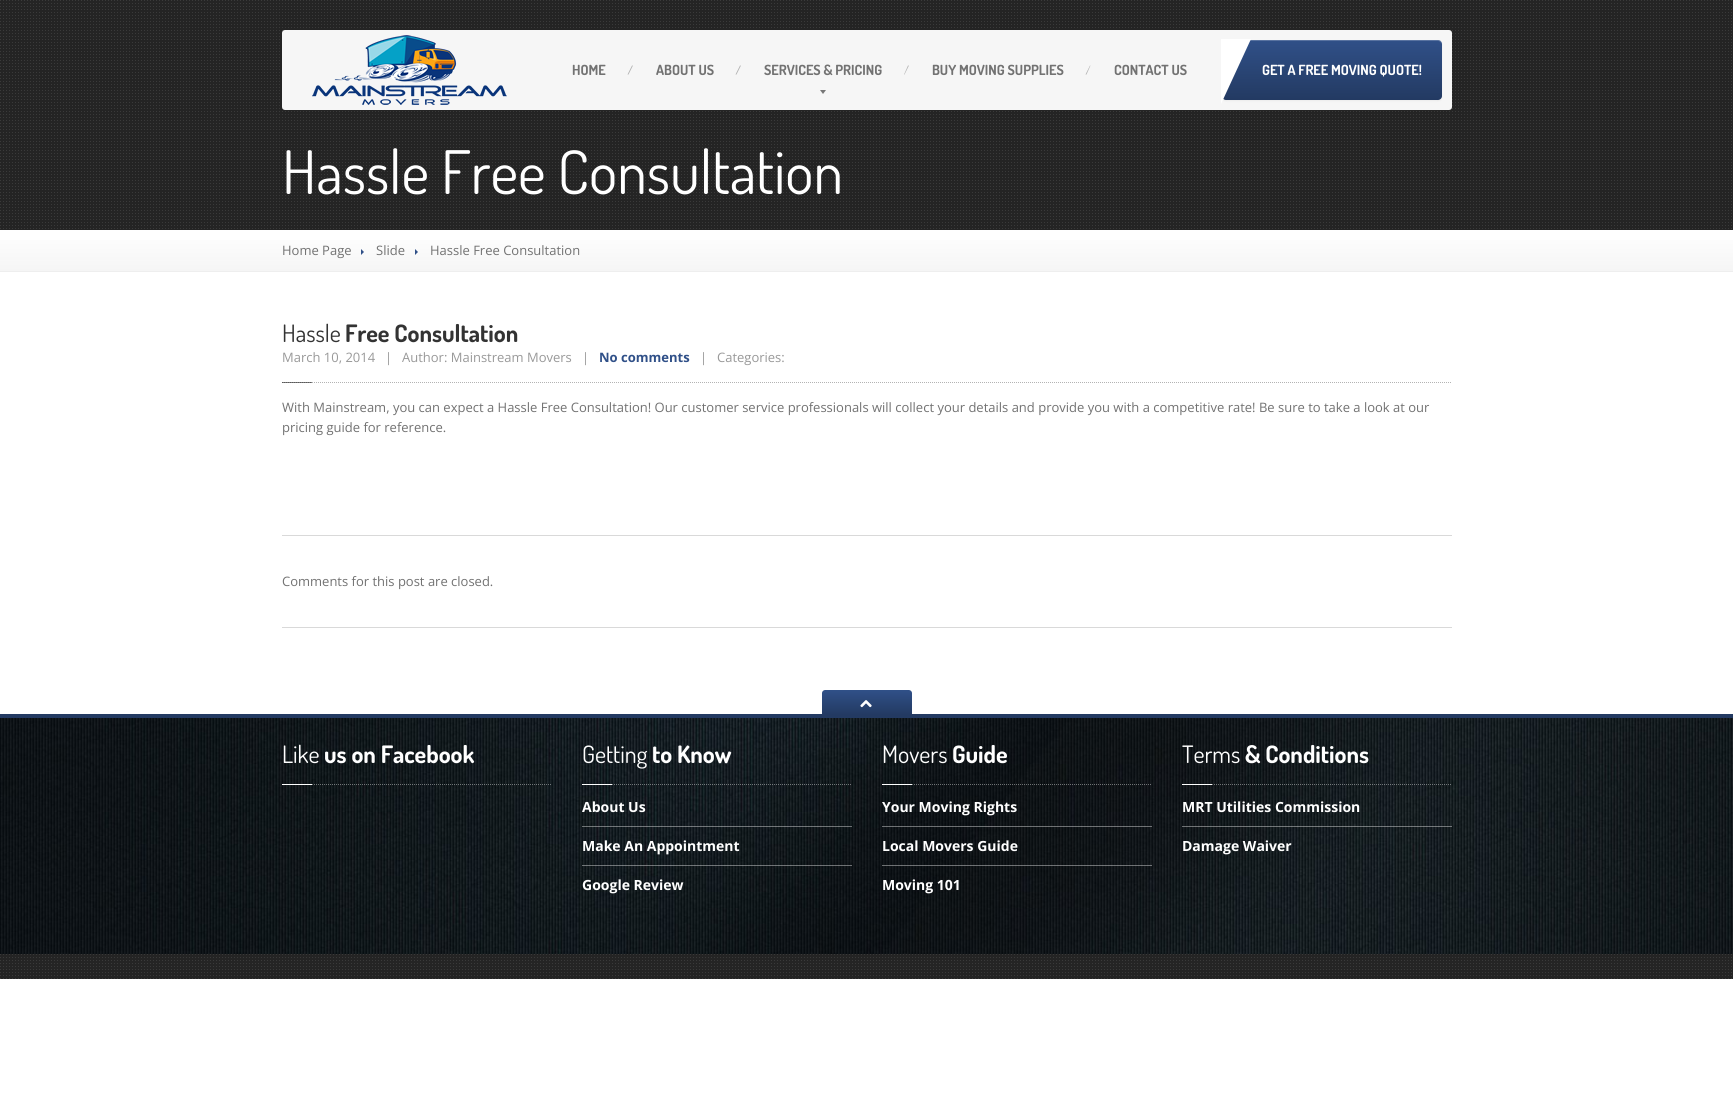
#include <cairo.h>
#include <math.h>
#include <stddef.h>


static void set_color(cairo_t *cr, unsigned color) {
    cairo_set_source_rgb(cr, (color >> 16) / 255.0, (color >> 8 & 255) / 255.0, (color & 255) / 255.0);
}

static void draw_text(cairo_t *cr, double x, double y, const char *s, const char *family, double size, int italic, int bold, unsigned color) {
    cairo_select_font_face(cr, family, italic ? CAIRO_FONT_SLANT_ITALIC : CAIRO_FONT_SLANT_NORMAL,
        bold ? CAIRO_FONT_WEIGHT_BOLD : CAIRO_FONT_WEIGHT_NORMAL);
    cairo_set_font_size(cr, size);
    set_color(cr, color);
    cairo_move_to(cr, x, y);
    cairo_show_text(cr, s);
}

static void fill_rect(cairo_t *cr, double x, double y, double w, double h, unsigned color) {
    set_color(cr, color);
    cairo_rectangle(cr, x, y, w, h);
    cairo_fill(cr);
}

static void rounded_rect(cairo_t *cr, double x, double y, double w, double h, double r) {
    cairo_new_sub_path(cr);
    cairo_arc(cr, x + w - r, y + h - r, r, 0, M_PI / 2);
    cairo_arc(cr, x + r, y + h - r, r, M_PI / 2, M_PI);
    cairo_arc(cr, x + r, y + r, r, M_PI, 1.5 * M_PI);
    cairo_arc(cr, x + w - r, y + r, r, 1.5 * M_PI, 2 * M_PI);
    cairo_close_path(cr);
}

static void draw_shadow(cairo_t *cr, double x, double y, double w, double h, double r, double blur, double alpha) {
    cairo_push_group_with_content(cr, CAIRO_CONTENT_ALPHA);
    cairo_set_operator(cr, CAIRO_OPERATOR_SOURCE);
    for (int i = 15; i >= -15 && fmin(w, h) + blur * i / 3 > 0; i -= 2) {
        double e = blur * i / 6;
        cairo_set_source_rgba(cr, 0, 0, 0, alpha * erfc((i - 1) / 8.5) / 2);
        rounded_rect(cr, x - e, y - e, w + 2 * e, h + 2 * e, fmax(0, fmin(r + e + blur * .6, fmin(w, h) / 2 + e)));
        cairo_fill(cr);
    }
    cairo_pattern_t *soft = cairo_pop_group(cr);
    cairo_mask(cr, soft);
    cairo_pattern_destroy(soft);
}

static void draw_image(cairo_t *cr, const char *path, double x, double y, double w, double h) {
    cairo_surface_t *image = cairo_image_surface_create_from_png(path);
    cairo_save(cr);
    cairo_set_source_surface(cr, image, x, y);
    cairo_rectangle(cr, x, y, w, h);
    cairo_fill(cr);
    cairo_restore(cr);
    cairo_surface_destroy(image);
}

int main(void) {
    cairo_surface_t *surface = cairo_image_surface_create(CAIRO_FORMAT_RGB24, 1733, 1116);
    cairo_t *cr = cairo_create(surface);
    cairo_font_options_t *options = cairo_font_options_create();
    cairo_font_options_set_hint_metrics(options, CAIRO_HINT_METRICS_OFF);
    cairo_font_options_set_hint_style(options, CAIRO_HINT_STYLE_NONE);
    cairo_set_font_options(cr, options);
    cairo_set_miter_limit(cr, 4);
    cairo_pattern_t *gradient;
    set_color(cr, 0xFFFFFF);
    cairo_paint(cr);
    draw_image(cr, "assets/img2.png", 0, 0, 1733, 230);
    set_color(cr, 0xF6F6F6);
    rounded_rect(cr, 282, 30, 1170, 80, 3);
    cairo_fill(cr);
    draw_image(cr, "assets/img1.png", 312, 35, 195, 70);
    draw_text(cr, 572, 75, "HOME", "Dosis", 14, 0, 1, 0x727272);
    set_color(cr, 0xB4B4B4);
    cairo_new_path(cr);
    cairo_move_to(cr, 632, 65.5);
    cairo_line_to(cr, 633, 65.5);
    cairo_line_to(cr, 628.5, 74.5);
    cairo_line_to(cr, 627.5, 74.5);
    cairo_close_path(cr);
    cairo_fill(cr);
    draw_text(cr, 656, 75, "ABOUT US", "Dosis", 14, 0, 1, 0x727272);
    set_color(cr, 0xB4B4B4);
    cairo_new_path(cr);
    cairo_move_to(cr, 740, 65.5);
    cairo_line_to(cr, 741, 65.5);
    cairo_line_to(cr, 736.5, 74.5);
    cairo_line_to(cr, 735.5, 74.5);
    cairo_close_path(cr);
    cairo_fill(cr);
    draw_text(cr, 764, 75, "SERVICES & PRICING", "Dosis", 14, 0, 1, 0x727272);
    set_color(cr, 0xB4B4B4);
    cairo_new_path(cr);
    cairo_move_to(cr, 908, 65.5);
    cairo_line_to(cr, 909, 65.5);
    cairo_line_to(cr, 904.5, 74.5);
    cairo_line_to(cr, 904, 74.5);
    cairo_close_path(cr);
    cairo_fill(cr);
    set_color(cr, 0x777777);
    cairo_new_path(cr);
    cairo_move_to(cr, 820, 90);
    cairo_line_to(cr, 826, 90);
    cairo_line_to(cr, 823, 94);
    cairo_close_path(cr);
    cairo_fill(cr);
    draw_text(cr, 932, 75, "BUY MOVING SUPPLIES", "Dosis", 14, 0, 1, 0x727272);
    set_color(cr, 0xB4B4B4);
    cairo_new_path(cr);
    cairo_move_to(cr, 1090, 65.5);
    cairo_line_to(cr, 1090.5, 65.5);
    cairo_line_to(cr, 1086.5, 74.5);
    cairo_line_to(cr, 1085.5, 74.5);
    cairo_close_path(cr);
    cairo_fill(cr);
    draw_text(cr, 1114, 75, "CONTACT US", "Dosis", 14, 0, 1, 0x727272);
    set_color(cr, 0x000000);
    draw_shadow(cr, 1222, 41, 220, 60, 4, 1, 0.05);
    gradient = cairo_pattern_create_linear(1332, 40, 1332, 100);
    cairo_pattern_add_color_stop_rgba(gradient, 0, 0.188, 0.314, 0.533, 1);
    cairo_pattern_add_color_stop_rgba(gradient, 1, 0.137, 0.227, 0.384, 1);
    cairo_set_source(cr, gradient);
    cairo_pattern_destroy(gradient);
    rounded_rect(cr, 1222, 40, 220, 60, 4);
    cairo_fill(cr);
    cairo_set_source_rgba(cr, 1, 1, 1, 0.2);
    cairo_new_path(cr);
    cairo_move_to(cr, 1226, 41);
    cairo_line_to(cr, 1438, 41);
    cairo_curve_to(cr, 1440, 41, 1442, 43, 1442, 45);
    cairo_curve_to(cr, 1442, 42, 1441, 40, 1438, 40);
    cairo_line_to(cr, 1224, 40);
    cairo_curve_to(cr, 1222, 41, 1222, 43, 1222, 45);
    cairo_curve_to(cr, 1222, 43, 1224, 41, 1226, 41);
    cairo_close_path(cr);
    cairo_fill(cr);
    set_color(cr, 0xFFFFFF);
    cairo_new_path(cr);
    cairo_move_to(cr, 1221, 39);
    cairo_line_to(cr, 1251, 39);
    cairo_line_to(cr, 1221, 104);
    cairo_close_path(cr);
    cairo_fill(cr);
    draw_text(cr, 1262, 75, "GET A FREE MOVING QUOTE!", "Dosis", 14, 0, 1, 0xFFFFFF);
    draw_text(cr, 282, 194, "Hassle Free Consultation", "Dosis", 60, 0, 0, 0xFFFFFF);
    gradient = cairo_pattern_create_linear(867, 230, 867, 271);
    cairo_pattern_add_color_stop_rgba(gradient, 0, 1, 1, 1, 1);
    cairo_pattern_add_color_stop_rgba(gradient, 1, 0.961, 0.961, 0.961, 1);
    cairo_set_source(cr, gradient);
    cairo_pattern_destroy(gradient);
    cairo_rectangle(cr, 0, 240, 1733, 31);
    cairo_fill(cr);
    fill_rect(cr, 0, 271, 1733, 1, 0xEEEEEE);
    draw_text(cr, 282, 255, "Home Page", "Open Sans", 13, 0, 0, 0x727272);
    set_color(cr, 0x305088);
    cairo_new_path(cr);
    cairo_move_to(cr, 361, 255);
    cairo_line_to(cr, 361, 249);
    cairo_line_to(cr, 364, 252);
    cairo_close_path(cr);
    cairo_fill(cr);
    draw_text(cr, 376, 255, "Slide", "Open Sans", 13, 0, 0, 0x727272);
    set_color(cr, 0x305088);
    cairo_new_path(cr);
    cairo_move_to(cr, 415, 255);
    cairo_line_to(cr, 415, 249);
    cairo_line_to(cr, 418, 252);
    cairo_close_path(cr);
    cairo_fill(cr);
    draw_text(cr, 430, 255, "Hassle Free Consultation", "Open Sans", 13, 0, 0, 0x727272);
    cairo_new_path(cr);
    cairo_move_to(cr, 282, 382.5);
    cairo_line_to(cr, 1452, 382.5);
    set_color(cr, 0xB3B3B3);
    cairo_set_line_width(cr, 1);
    cairo_set_dash(cr, (double[]){1, 1}, 2, 0);
    cairo_stroke(cr);
    draw_text(cr, 282, 342, "Hassle", "Dosis", 24, 0, 0, 0x333333);
    draw_text(cr, 345, 342, "Free Consultation", "Dosis", 24, 0, 1, 0x333333);
    draw_text(cr, 282, 362, "March 10, 2014", "Open Sans", 13, 0, 0, 0x999999);
    draw_text(cr, 385, 362, "|", "Open Sans", 13, 0, 0, 0x999999);
    draw_text(cr, 402, 362, "Author: Mainstream Movers   |", "Open Sans", 13, 0, 0, 0x999999);
    draw_text(cr, 599, 362, "No comments", "Open Sans", 13, 0, 1, 0x305088);
    draw_text(cr, 700, 362, "|", "Open Sans", 13, 0, 0, 0x999999);
    draw_text(cr, 717, 362, "Categories:", "Open Sans", 13, 0, 0, 0x999999);
    cairo_set_source_rgba(cr, 0, 0, 0, 0.5);
    cairo_rectangle(cr, 282, 382, 30, 1);
    cairo_fill(cr);
    draw_text(cr, 282, 412, "With Mainstream, you can expect a Hassle Free Consultation! Our customer service professionals will collect your details and provide you with a competitive rate! Be sure to take a look at our", "Open Sans", 13, 0, 0, 0x727272);
    draw_text(cr, 282, 432, "pricing guide for reference.", "Open Sans", 13, 0, 0, 0x727272);
    fill_rect(cr, 282, 535, 1170, 1, 0xD9D9D9);
    draw_text(cr, 282, 586, "Comments for this post are closed.", "Open Sans", 13, 0, 0, 0x727272);
    fill_rect(cr, 282, 627, 1170, 1, 0xD9D9D9);
    draw_image(cr, "assets/img3.png", 0, 718, 1733, 236);
    fill_rect(cr, 0, 714, 1733, 4, 0x233A62);
    gradient = cairo_pattern_create_linear(867, 690, 867, 715);
    cairo_pattern_add_color_stop_rgba(gradient, 0, 0.188, 0.314, 0.533, 1);
    cairo_pattern_add_color_stop_rgba(gradient, 1, 0.137, 0.227, 0.384, 1);
    cairo_set_source(cr, gradient);
    cairo_pattern_destroy(gradient);
    cairo_new_path(cr);
    cairo_move_to(cr, 825, 690);
    cairo_line_to(cr, 909, 690);
    cairo_curve_to(cr, 910.5, 690, 912, 691.5, 912, 693);
    cairo_line_to(cr, 912, 715);
    cairo_line_to(cr, 822, 715);
    cairo_line_to(cr, 822, 693);
    cairo_curve_to(cr, 822, 691.5, 823.5, 690, 825, 690);
    cairo_close_path(cr);
    cairo_fill(cr);
    draw_image(cr, "assets/img4.png", 860, 700, 12, 8);
    cairo_new_path(cr);
    cairo_move_to(cr, 282, 784.5);
    cairo_line_to(cr, 552, 784.5);
    cairo_set_source_rgba(cr, 1, 1, 1, 0.4);
    cairo_stroke(cr);
    draw_text(cr, 282, 763, "Like", "Dosis", 24, 0, 0, 0xFFFFFF);
    draw_text(cr, 324, 763, "us on Facebook", "Dosis", 24, 0, 1, 0xFFFFFF);
    fill_rect(cr, 282, 784, 30, 1, 0xFFFFFF);
    cairo_new_path(cr);
    cairo_move_to(cr, 582, 784.5);
    cairo_line_to(cr, 852, 784.5);
    cairo_set_source_rgba(cr, 1, 1, 1, 0.4);
    cairo_stroke(cr);
    draw_text(cr, 582, 763, "Getting", "Dosis", 24, 0, 0, 0xFFFFFF);
    draw_text(cr, 652, 763, "to Know", "Dosis", 24, 0, 1, 0xFFFFFF);
    fill_rect(cr, 582, 784, 30, 1, 0xFFFFFF);
    cairo_set_source_rgba(cr, 1, 1, 1, 0.4);
    cairo_rectangle(cr, 582, 826, 270, 1);
    cairo_fill(cr);
    draw_text(cr, 582, 812, "About Us", "Open Sans", 14, 0, 1, 0xFFFFFF);
    cairo_set_source_rgba(cr, 1, 1, 1, 0.4);
    cairo_rectangle(cr, 582, 865, 270, 1);
    cairo_fill(cr);
    draw_text(cr, 582, 851, "Make An Appointment", "Open Sans", 14, 0, 1, 0xFFFFFF);
    draw_text(cr, 582, 890, "Google Review", "Open Sans", 14, 0, 1, 0xFFFFFF);
    cairo_new_path(cr);
    cairo_move_to(cr, 882, 784.5);
    cairo_line_to(cr, 1152, 784.5);
    cairo_set_source_rgba(cr, 1, 1, 1, 0.4);
    cairo_stroke(cr);
    draw_text(cr, 882, 763, "Movers", "Dosis", 24, 0, 0, 0xFFFFFF);
    draw_text(cr, 952, 763, "Guide", "Dosis", 24, 0, 1, 0xFFFFFF);
    fill_rect(cr, 882, 784, 30, 1, 0xFFFFFF);
    cairo_set_source_rgba(cr, 1, 1, 1, 0.4);
    cairo_rectangle(cr, 882, 826, 270, 1);
    cairo_fill(cr);
    draw_text(cr, 882, 812, "Your Moving Rights", "Open Sans", 14, 0, 1, 0xFFFFFF);
    cairo_set_source_rgba(cr, 1, 1, 1, 0.4);
    cairo_rectangle(cr, 882, 865, 270, 1);
    cairo_fill(cr);
    draw_text(cr, 882, 851, "Local Movers Guide", "Open Sans", 14, 0, 1, 0xFFFFFF);
    draw_text(cr, 882, 890, "Moving 101", "Open Sans", 14, 0, 1, 0xFFFFFF);
    cairo_new_path(cr);
    cairo_move_to(cr, 1182, 784.5);
    cairo_line_to(cr, 1452, 784.5);
    cairo_set_source_rgba(cr, 1, 1, 1, 0.4);
    cairo_stroke(cr);
    draw_text(cr, 1182, 763, "Terms", "Dosis", 24, 0, 0, 0xFFFFFF);
    draw_text(cr, 1245, 763, "& Conditions", "Dosis", 24, 0, 1, 0xFFFFFF);
    fill_rect(cr, 1182, 784, 30, 1, 0xFFFFFF);
    cairo_set_source_rgba(cr, 1, 1, 1, 0.4);
    cairo_rectangle(cr, 1182, 826, 270, 1);
    cairo_fill(cr);
    draw_text(cr, 1182, 812, "MRT Utilities Commission", "Open Sans", 14, 0, 1, 0xFFFFFF);
    draw_text(cr, 1182, 851, "Damage Waiver", "Open Sans", 14, 0, 1, 0xFFFFFF);
    draw_image(cr, "assets/img5.png", 0, 954, 1733, 25);
    cairo_surface_write_to_png(surface, "output.png");
    cairo_font_options_destroy(options);
    cairo_destroy(cr);
    cairo_surface_destroy(surface);
    return 0;
}
